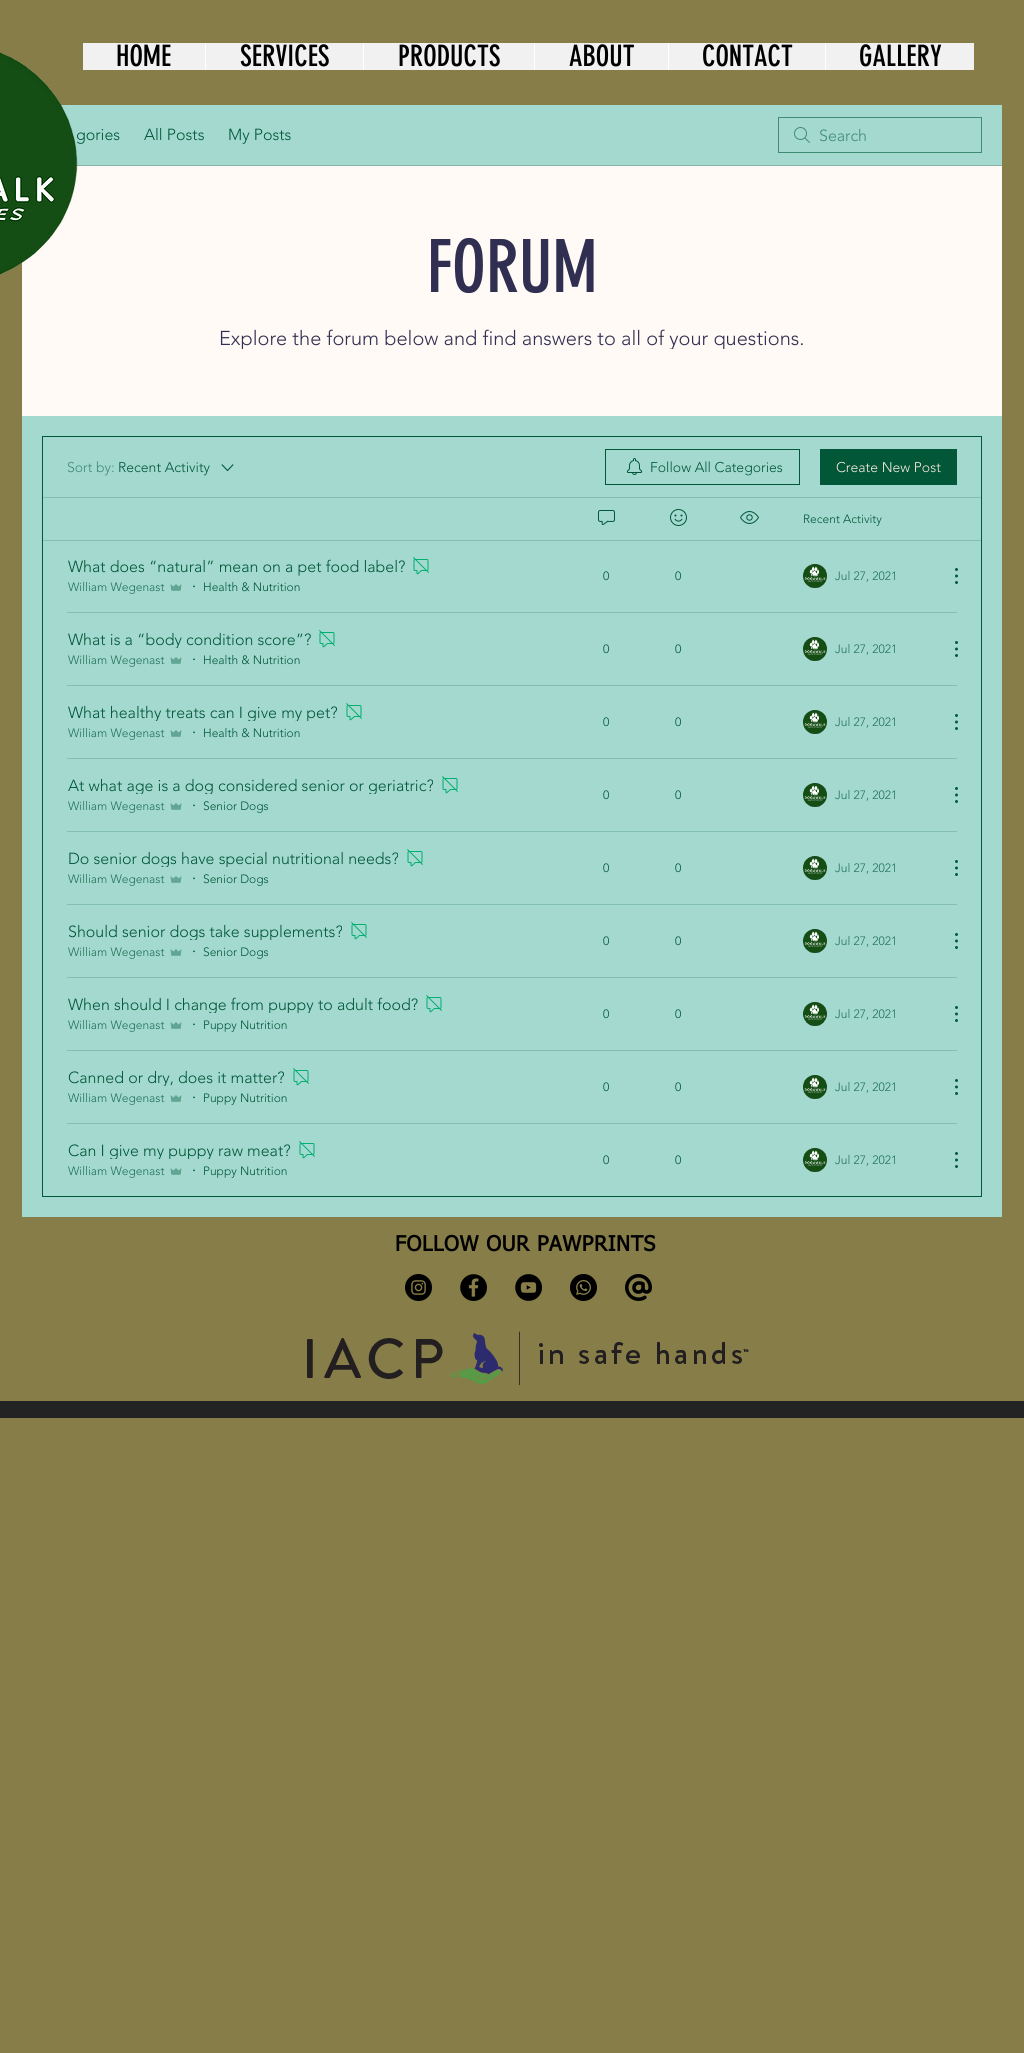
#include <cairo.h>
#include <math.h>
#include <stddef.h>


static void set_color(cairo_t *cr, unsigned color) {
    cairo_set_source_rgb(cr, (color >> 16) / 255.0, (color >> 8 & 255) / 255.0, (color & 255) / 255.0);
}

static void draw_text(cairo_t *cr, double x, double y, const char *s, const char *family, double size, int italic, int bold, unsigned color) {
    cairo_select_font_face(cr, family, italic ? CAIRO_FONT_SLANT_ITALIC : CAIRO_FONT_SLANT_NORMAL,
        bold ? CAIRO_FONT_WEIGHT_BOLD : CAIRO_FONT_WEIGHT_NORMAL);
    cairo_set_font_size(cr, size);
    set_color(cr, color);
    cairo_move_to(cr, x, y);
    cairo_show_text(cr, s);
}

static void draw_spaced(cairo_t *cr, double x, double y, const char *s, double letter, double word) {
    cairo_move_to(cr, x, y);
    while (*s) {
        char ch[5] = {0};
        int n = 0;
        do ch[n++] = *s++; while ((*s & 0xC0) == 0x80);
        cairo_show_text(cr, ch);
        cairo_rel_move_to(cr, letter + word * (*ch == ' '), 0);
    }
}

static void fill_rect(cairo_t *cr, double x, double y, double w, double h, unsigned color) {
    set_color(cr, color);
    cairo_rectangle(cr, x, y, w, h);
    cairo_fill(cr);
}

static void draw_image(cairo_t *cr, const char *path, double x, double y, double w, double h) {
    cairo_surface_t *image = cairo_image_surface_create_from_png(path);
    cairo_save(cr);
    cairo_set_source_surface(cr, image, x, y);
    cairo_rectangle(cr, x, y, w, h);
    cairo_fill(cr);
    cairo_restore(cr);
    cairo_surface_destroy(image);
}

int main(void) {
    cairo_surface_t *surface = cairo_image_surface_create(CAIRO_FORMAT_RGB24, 1024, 2053);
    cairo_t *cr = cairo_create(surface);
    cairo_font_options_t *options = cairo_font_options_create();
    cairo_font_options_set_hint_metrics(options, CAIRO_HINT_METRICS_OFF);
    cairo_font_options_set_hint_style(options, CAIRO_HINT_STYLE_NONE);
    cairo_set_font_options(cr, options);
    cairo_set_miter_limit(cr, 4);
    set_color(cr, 0x877D48);
    cairo_paint(cr);
    fill_rect(cr, 22, 105, 980, 1112, 0xA3D9CF);
    fill_rect(cr, 74, 165, 928, 1, 0x88B0A6);
    draw_text(cr, 76, 140, "gories", "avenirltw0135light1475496 Light", 16, 0, 0, 0x015738);
    fill_rect(cr, 22, 166, 980, 250, 0xFFFAF5);
    draw_image(cr, "assets/img1.png", 0, 52, 78, 223);
    fill_rect(cr, 83, 43, 891, 27, 0xF1F1F1);
    draw_text(cr, 116, 66, "HOME", "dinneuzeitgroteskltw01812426", 29, 0, 0, 0x000000);
    fill_rect(cr, 205, 43, 1, 27, 0xFFFFFF);
    draw_text(cr, 240, 66, "SERVICES", "dinneuzeitgroteskltw01812426", 29, 0, 0, 0x000000);
    fill_rect(cr, 363, 43, 1, 27, 0xFFFFFF);
    draw_text(cr, 398, 66, "PRODUCTS", "dinneuzeitgroteskltw01812426", 29, 0, 0, 0x000000);
    fill_rect(cr, 534, 43, 1, 27, 0xFFFFFF);
    draw_text(cr, 569, 66, "ABOUT", "dinneuzeitgroteskltw01812426", 29, 0, 0, 0x000000);
    fill_rect(cr, 668, 43, 1, 27, 0xFFFFFF);
    draw_text(cr, 702, 66, "CONTACT", "dinneuzeitgroteskltw01812426", 29, 0, 0, 0x000000);
    fill_rect(cr, 825, 43, 1, 27, 0xFFFFFF);
    draw_text(cr, 859, 66, "GALLERY", "dinneuzeitgroteskltw01812426", 29, 0, 0, 0x000000);
    draw_text(cr, 144, 140, "All Posts", "avenirltw0135light1475496 Light", 16, 0, 0, 0x015738);
    draw_text(cr, 228, 140, "My Posts", "avenirltw0135light1475496 Light", 16, 0, 0, 0x015738);
    draw_image(cr, "assets/img2.png", 794, 127, 16, 16);
    cairo_rectangle(cr, 778.5, 117.5, 203, 35);
    set_color(cr, 0x428B74);
    cairo_set_line_width(cr, 1);
    cairo_stroke(cr);
    draw_text(cr, 819, 141, "Search", "avenirltw0135light1475496 Light", 16, 0, 0, 0x428B74);
    draw_text(cr, 427, 292, "FORUM", "dinneuzeitgroteskltw01812426", 72, 0, 0, 0x302F51);
    cairo_save(cr);
    cairo_rectangle(cr, 172, 327, 680, 22);
    cairo_clip(cr);
    draw_text(cr, 219, 345, "Explore the forum below and find answers to all of your questions.", "avenirltw0135light1475496 Light", 20, 0, 0, 0x302F51);
    cairo_restore(cr);
    cairo_rectangle(cr, 42.5, 436.5, 939, 760);
    set_color(cr, 0x015738);
    cairo_stroke(cr);
    draw_text(cr, 67, 472, "Sort by:", "avenirltw0135light1475496 Light", 14, 0, 0, 0x428B74);
    draw_text(cr, 118, 472, "Recent Activity", "avenirltw0135light1475496 Light", 14, 0, 0, 0x015738);
    draw_image(cr, "assets/img3.png", 221, 464, 13, 8);
    cairo_rectangle(cr, 605.5, 449.5, 194, 35);
    cairo_stroke(cr);
    draw_image(cr, "assets/img4.png", 627, 458, 15, 17);
    draw_text(cr, 650, 472, "Follow All Categories", "avenirltw0135light1475496 Light", 14, 0, 0, 0x015738);
    fill_rect(cr, 820, 449, 137, 36, 0x015738);
    draw_text(cr, 836, 472, "Create New Post", "avenirltw0135light1475496 Light", 14, 0, 0, 0xFAECE1);
    fill_rect(cr, 43, 497, 938, 1, 0x83BFB1);
    draw_image(cr, "assets/img5.png", 598, 510, 17, 15);
    draw_image(cr, "assets/img6.png", 670, 509, 17, 17);
    draw_image(cr, "assets/img7.png", 740, 511, 19, 13);
    draw_text(cr, 803, 523, "Recent Activity", "avenirltw0135light1475496 Light", 12, 0, 0, 0x015738);
    fill_rect(cr, 43, 540, 938, 1, 0x83BFB1);
    draw_text(cr, 68, 572, "What does “natural” mean on a pet food label?", "avenirltw0135light1475496 Light", 16, 0, 0, 0x015738);
    draw_image(cr, "assets/img8.png", 413, 557, 16, 18);
    draw_text(cr, 68, 591, "William Wegenast", "avenirltw0135light1475496 Light", 12, 0, 0, 0x217156);
    draw_image(cr, "assets/img9.png", 170, 584, 12, 7);
    draw_text(cr, 192, 591, "·", "avenirltw0135light1475496", 14, 0, 1, 0x015738);
    draw_text(cr, 203, 591, "Health & Nutrition", "avenirltw0135light1475496 Light", 12, 0, 0, 0x015738);
    draw_text(cr, 603, 580, "0", "avenirltw0135light1475496 Light", 12, 0, 0, 0x015738);
    draw_text(cr, 675, 580, "0", "avenirltw0135light1475496 Light", 12, 0, 0, 0x015738);
    draw_image(cr, "assets/img10.png", 803, 564, 24, 24);
    draw_text(cr, 835, 580, "Jul 27, 2021", "avenirltw0135light1475496 Light", 12, 0, 0, 0x217156);
    draw_image(cr, "assets/img11.png", 955, 568, 3, 16);
    fill_rect(cr, 67, 612, 890, 1, 0x83BFB1);
    cairo_save(cr);
    cairo_rectangle(cr, 68, 632, 243, 16);
    cairo_clip(cr);
    draw_text(cr, 68, 645, "What is a “body condition score”?", "avenirltw0135light1475496 Light", 16, 0, 0, 0x015738);
    cairo_restore(cr);
    draw_image(cr, "assets/img8.png", 319, 630, 16, 18);
    draw_text(cr, 68, 664, "William Wegenast", "avenirltw0135light1475496 Light", 12, 0, 0, 0x217156);
    draw_image(cr, "assets/img9.png", 170, 657, 12, 7);
    draw_text(cr, 192, 664, "·", "avenirltw0135light1475496", 14, 0, 1, 0x015738);
    draw_text(cr, 203, 664, "Health & Nutrition", "avenirltw0135light1475496 Light", 12, 0, 0, 0x015738);
    draw_text(cr, 603, 653, "0", "avenirltw0135light1475496 Light", 12, 0, 0, 0x015738);
    draw_text(cr, 675, 653, "0", "avenirltw0135light1475496 Light", 12, 0, 0, 0x015738);
    draw_image(cr, "assets/img10.png", 803, 637, 24, 24);
    draw_text(cr, 835, 653, "Jul 27, 2021", "avenirltw0135light1475496 Light", 12, 0, 0, 0x217156);
    draw_image(cr, "assets/img11.png", 955, 641, 3, 16);
    fill_rect(cr, 67, 685, 890, 1, 0x83BFB1);
    cairo_save(cr);
    cairo_rectangle(cr, 68, 705, 270, 16);
    cairo_clip(cr);
    draw_text(cr, 68, 718, "What healthy treats can I give my pet?", "avenirltw0135light1475496 Light", 16, 0, 0, 0x015738);
    cairo_restore(cr);
    draw_image(cr, "assets/img8.png", 346, 703, 16, 18);
    draw_text(cr, 68, 737, "William Wegenast", "avenirltw0135light1475496 Light", 12, 0, 0, 0x217156);
    draw_image(cr, "assets/img9.png", 170, 730, 12, 7);
    draw_text(cr, 192, 737, "·", "avenirltw0135light1475496", 14, 0, 1, 0x015738);
    draw_text(cr, 203, 737, "Health & Nutrition", "avenirltw0135light1475496 Light", 12, 0, 0, 0x015738);
    draw_text(cr, 603, 726, "0", "avenirltw0135light1475496 Light", 12, 0, 0, 0x015738);
    draw_text(cr, 675, 726, "0", "avenirltw0135light1475496 Light", 12, 0, 0, 0x015738);
    draw_image(cr, "assets/img10.png", 803, 710, 24, 24);
    draw_text(cr, 835, 726, "Jul 27, 2021", "avenirltw0135light1475496 Light", 12, 0, 0, 0x217156);
    draw_image(cr, "assets/img11.png", 955, 714, 3, 16);
    fill_rect(cr, 67, 758, 890, 1, 0x83BFB1);
    cairo_save(cr);
    cairo_rectangle(cr, 68, 778, 366, 16);
    cairo_clip(cr);
    draw_text(cr, 68, 791, "At what age is a dog considered senior or geriatric?", "avenirltw0135light1475496 Light", 16, 0, 0, 0x015738);
    cairo_restore(cr);
    draw_image(cr, "assets/img8.png", 442, 776, 16, 18);
    draw_text(cr, 68, 810, "William Wegenast", "avenirltw0135light1475496 Light", 12, 0, 0, 0x217156);
    draw_image(cr, "assets/img9.png", 170, 803, 12, 7);
    draw_text(cr, 192, 810, "·", "avenirltw0135light1475496", 14, 0, 1, 0x015738);
    draw_text(cr, 203, 810, "Senior Dogs", "avenirltw0135light1475496 Light", 12, 0, 0, 0x015738);
    draw_text(cr, 603, 799, "0", "avenirltw0135light1475496 Light", 12, 0, 0, 0x015738);
    draw_text(cr, 675, 799, "0", "avenirltw0135light1475496 Light", 12, 0, 0, 0x015738);
    draw_image(cr, "assets/img10.png", 803, 783, 24, 24);
    draw_text(cr, 835, 799, "Jul 27, 2021", "avenirltw0135light1475496 Light", 12, 0, 0, 0x217156);
    draw_image(cr, "assets/img11.png", 955, 787, 3, 16);
    fill_rect(cr, 67, 831, 890, 1, 0x83BFB1);
    cairo_save(cr);
    cairo_rectangle(cr, 68, 851, 331, 16);
    cairo_clip(cr);
    draw_text(cr, 68, 864, "Do senior dogs have special nutritional needs?", "avenirltw0135light1475496 Light", 16, 0, 0, 0x015738);
    cairo_restore(cr);
    draw_image(cr, "assets/img8.png", 407, 849, 16, 18);
    draw_text(cr, 68, 883, "William Wegenast", "avenirltw0135light1475496 Light", 12, 0, 0, 0x217156);
    draw_image(cr, "assets/img9.png", 170, 876, 12, 7);
    draw_text(cr, 192, 883, "·", "avenirltw0135light1475496", 14, 0, 1, 0x015738);
    draw_text(cr, 203, 883, "Senior Dogs", "avenirltw0135light1475496 Light", 12, 0, 0, 0x015738);
    draw_text(cr, 603, 872, "0", "avenirltw0135light1475496 Light", 12, 0, 0, 0x015738);
    draw_text(cr, 675, 872, "0", "avenirltw0135light1475496 Light", 12, 0, 0, 0x015738);
    draw_image(cr, "assets/img10.png", 803, 856, 24, 24);
    draw_text(cr, 835, 872, "Jul 27, 2021", "avenirltw0135light1475496 Light", 12, 0, 0, 0x217156);
    draw_image(cr, "assets/img11.png", 955, 860, 3, 16);
    fill_rect(cr, 67, 904, 890, 1, 0x83BFB1);
    cairo_save(cr);
    cairo_rectangle(cr, 68, 924, 275, 16);
    cairo_clip(cr);
    draw_text(cr, 68, 937, "Should senior dogs take supplements?", "avenirltw0135light1475496 Light", 16, 0, 0, 0x015738);
    cairo_restore(cr);
    draw_image(cr, "assets/img8.png", 351, 922, 16, 18);
    draw_text(cr, 68, 956, "William Wegenast", "avenirltw0135light1475496 Light", 12, 0, 0, 0x217156);
    draw_image(cr, "assets/img9.png", 170, 949, 12, 7);
    draw_text(cr, 192, 956, "·", "avenirltw0135light1475496", 14, 0, 1, 0x015738);
    draw_text(cr, 203, 956, "Senior Dogs", "avenirltw0135light1475496 Light", 12, 0, 0, 0x015738);
    draw_text(cr, 603, 945, "0", "avenirltw0135light1475496 Light", 12, 0, 0, 0x015738);
    draw_text(cr, 675, 945, "0", "avenirltw0135light1475496 Light", 12, 0, 0, 0x015738);
    draw_image(cr, "assets/img10.png", 803, 929, 24, 24);
    draw_text(cr, 835, 945, "Jul 27, 2021", "avenirltw0135light1475496 Light", 12, 0, 0, 0x217156);
    draw_image(cr, "assets/img11.png", 955, 933, 3, 16);
    fill_rect(cr, 67, 977, 890, 1, 0x83BFB1);
    cairo_save(cr);
    cairo_rectangle(cr, 68, 997, 350, 16);
    cairo_clip(cr);
    draw_text(cr, 68, 1010, "When should I change from puppy to adult food?", "avenirltw0135light1475496 Light", 16, 0, 0, 0x015738);
    cairo_restore(cr);
    draw_image(cr, "assets/img8.png", 426, 995, 16, 18);
    draw_text(cr, 68, 1029, "William Wegenast", "avenirltw0135light1475496 Light", 12, 0, 0, 0x217156);
    draw_image(cr, "assets/img9.png", 170, 1022, 12, 7);
    draw_text(cr, 192, 1029, "·", "avenirltw0135light1475496", 14, 0, 1, 0x015738);
    draw_text(cr, 203, 1029, "Puppy Nutrition", "avenirltw0135light1475496 Light", 12, 0, 0, 0x015738);
    draw_text(cr, 603, 1018, "0", "avenirltw0135light1475496 Light", 12, 0, 0, 0x015738);
    draw_text(cr, 675, 1018, "0", "avenirltw0135light1475496 Light", 12, 0, 0, 0x015738);
    draw_image(cr, "assets/img12.png", 803, 1002, 24, 24);
    draw_text(cr, 835, 1018, "Jul 27, 2021", "avenirltw0135light1475496 Light", 12, 0, 0, 0x217156);
    draw_image(cr, "assets/img11.png", 955, 1006, 3, 16);
    fill_rect(cr, 67, 1050, 890, 1, 0x83BFB1);
    cairo_save(cr);
    cairo_rectangle(cr, 68, 1070, 217, 16);
    cairo_clip(cr);
    draw_text(cr, 68, 1083, "Canned or dry, does it matter?", "avenirltw0135light1475496 Light", 16, 0, 0, 0x015738);
    cairo_restore(cr);
    draw_image(cr, "assets/img8.png", 293, 1068, 16, 18);
    draw_text(cr, 68, 1102, "William Wegenast", "avenirltw0135light1475496 Light", 12, 0, 0, 0x217156);
    draw_image(cr, "assets/img9.png", 170, 1095, 12, 7);
    draw_text(cr, 192, 1102, "·", "avenirltw0135light1475496", 14, 0, 1, 0x015738);
    draw_text(cr, 203, 1102, "Puppy Nutrition", "avenirltw0135light1475496 Light", 12, 0, 0, 0x015738);
    draw_text(cr, 603, 1091, "0", "avenirltw0135light1475496 Light", 12, 0, 0, 0x015738);
    draw_text(cr, 675, 1091, "0", "avenirltw0135light1475496 Light", 12, 0, 0, 0x015738);
    draw_image(cr, "assets/img10.png", 803, 1075, 24, 24);
    draw_text(cr, 835, 1091, "Jul 27, 2021", "avenirltw0135light1475496 Light", 12, 0, 0, 0x217156);
    draw_image(cr, "assets/img11.png", 955, 1079, 3, 16);
    fill_rect(cr, 67, 1123, 890, 1, 0x83BFB1);
    cairo_save(cr);
    cairo_rectangle(cr, 68, 1143, 223, 16);
    cairo_clip(cr);
    draw_text(cr, 68, 1156, "Can I give my puppy raw meat?", "avenirltw0135light1475496 Light", 16, 0, 0, 0x015738);
    cairo_restore(cr);
    draw_image(cr, "assets/img8.png", 299, 1141, 16, 18);
    draw_text(cr, 68, 1175, "William Wegenast", "avenirltw0135light1475496 Light", 12, 0, 0, 0x217156);
    draw_image(cr, "assets/img9.png", 170, 1168, 12, 7);
    draw_text(cr, 192, 1175, "·", "avenirltw0135light1475496", 14, 0, 1, 0x015738);
    draw_text(cr, 203, 1175, "Puppy Nutrition", "avenirltw0135light1475496 Light", 12, 0, 0, 0x015738);
    draw_text(cr, 603, 1164, "0", "avenirltw0135light1475496 Light", 12, 0, 0, 0x015738);
    draw_text(cr, 675, 1164, "0", "avenirltw0135light1475496 Light", 12, 0, 0, 0x015738);
    draw_image(cr, "assets/img10.png", 803, 1148, 24, 24);
    draw_text(cr, 835, 1164, "Jul 27, 2021", "avenirltw0135light1475496 Light", 12, 0, 0, 0x217156);
    draw_image(cr, "assets/img11.png", 955, 1152, 3, 16);
    cairo_select_font_face(cr, "tahoma", CAIRO_FONT_SLANT_NORMAL, CAIRO_FONT_WEIGHT_BOLD);
    cairo_set_font_size(cr, 21);
    set_color(cr, 0x000000);
    draw_spaced(cr, 395, 1251, "FOLLOW OUR PAWPRINTS", 0.6, 0);
    draw_image(cr, "assets/img13.png", 405, 1274, 27, 27);
    draw_image(cr, "assets/img14.png", 460, 1274, 27, 27);
    draw_image(cr, "assets/img15.png", 515, 1274, 27, 27);
    draw_image(cr, "assets/img16.png", 570, 1274, 27, 27);
    draw_image(cr, "assets/img17.png", 625, 1274, 27, 27);
    draw_image(cr, "assets/img18.png", 307, 1331, 442, 54);
    fill_rect(cr, 0, 1401, 1024, 17, 0x242323);
    cairo_surface_write_to_png(surface, "output.png");
    cairo_font_options_destroy(options);
    cairo_destroy(cr);
    cairo_surface_destroy(surface);
    return 0;
}
